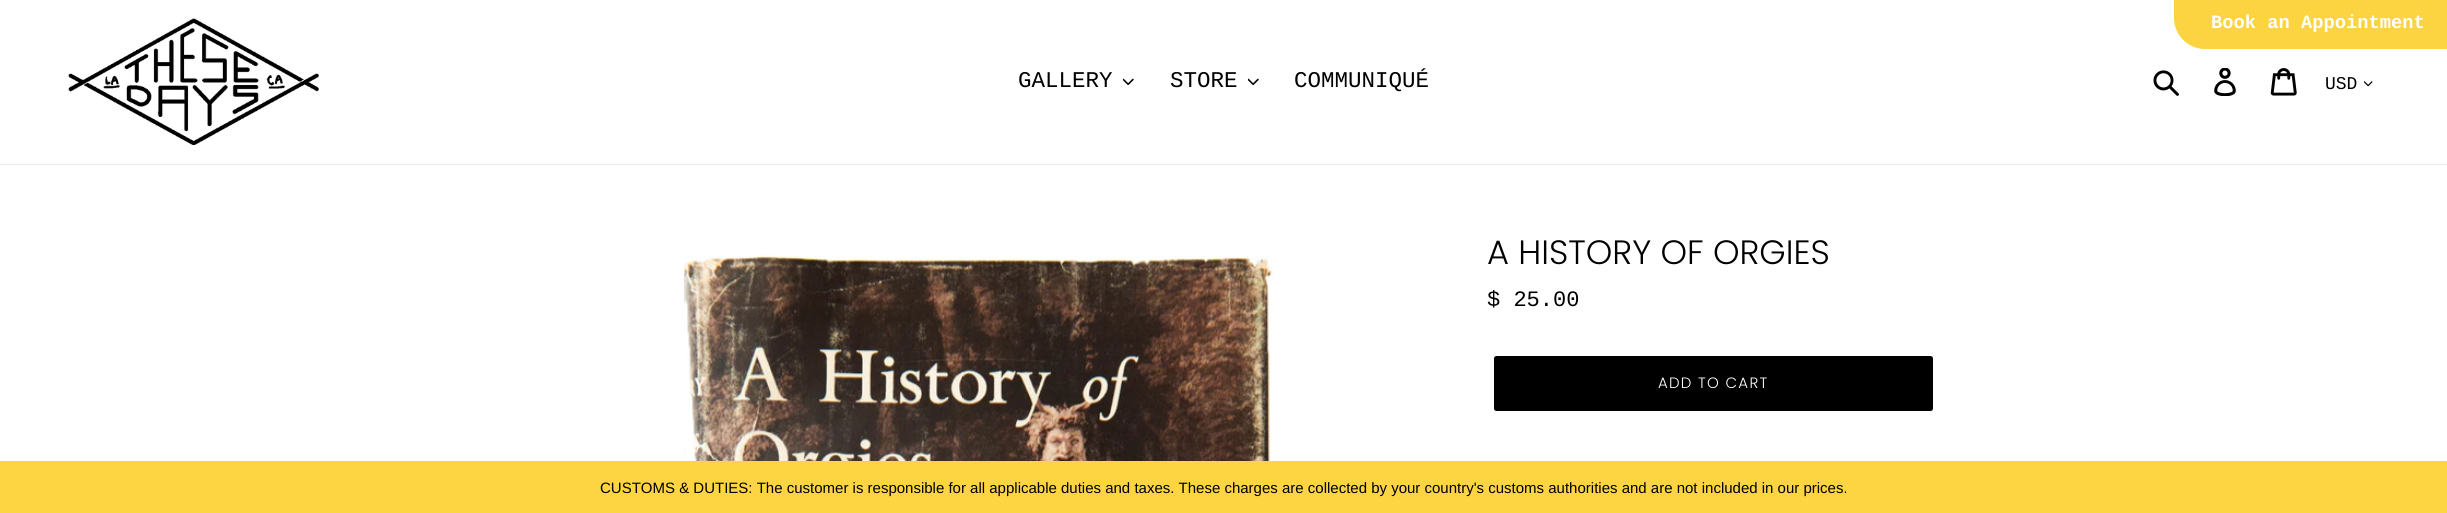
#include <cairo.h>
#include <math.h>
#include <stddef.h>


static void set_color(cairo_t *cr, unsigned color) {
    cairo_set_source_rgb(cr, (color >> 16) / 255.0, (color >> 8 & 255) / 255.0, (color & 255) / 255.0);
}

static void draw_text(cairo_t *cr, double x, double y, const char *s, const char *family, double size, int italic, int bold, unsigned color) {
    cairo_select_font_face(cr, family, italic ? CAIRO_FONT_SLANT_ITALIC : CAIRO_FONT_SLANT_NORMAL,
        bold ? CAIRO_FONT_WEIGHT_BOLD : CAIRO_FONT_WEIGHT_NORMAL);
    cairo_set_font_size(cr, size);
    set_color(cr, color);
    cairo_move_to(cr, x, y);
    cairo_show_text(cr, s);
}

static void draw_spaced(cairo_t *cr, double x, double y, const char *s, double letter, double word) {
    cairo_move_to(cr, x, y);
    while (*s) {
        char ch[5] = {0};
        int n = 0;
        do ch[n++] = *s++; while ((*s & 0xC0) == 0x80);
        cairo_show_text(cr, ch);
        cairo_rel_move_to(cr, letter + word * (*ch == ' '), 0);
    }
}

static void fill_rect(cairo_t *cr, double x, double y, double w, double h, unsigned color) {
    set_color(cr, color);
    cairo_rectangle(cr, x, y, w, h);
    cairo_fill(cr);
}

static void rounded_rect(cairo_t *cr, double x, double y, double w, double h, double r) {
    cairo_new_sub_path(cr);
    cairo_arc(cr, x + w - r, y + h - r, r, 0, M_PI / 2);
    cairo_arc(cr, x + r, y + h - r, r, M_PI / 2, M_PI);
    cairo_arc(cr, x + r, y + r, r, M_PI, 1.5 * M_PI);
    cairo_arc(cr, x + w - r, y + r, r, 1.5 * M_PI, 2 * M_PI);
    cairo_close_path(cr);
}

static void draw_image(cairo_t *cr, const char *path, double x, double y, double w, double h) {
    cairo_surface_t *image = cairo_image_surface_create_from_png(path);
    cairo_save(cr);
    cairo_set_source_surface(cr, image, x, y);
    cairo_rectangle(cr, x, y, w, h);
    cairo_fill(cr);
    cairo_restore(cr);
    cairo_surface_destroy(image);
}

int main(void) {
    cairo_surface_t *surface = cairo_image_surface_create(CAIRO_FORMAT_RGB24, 2447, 513);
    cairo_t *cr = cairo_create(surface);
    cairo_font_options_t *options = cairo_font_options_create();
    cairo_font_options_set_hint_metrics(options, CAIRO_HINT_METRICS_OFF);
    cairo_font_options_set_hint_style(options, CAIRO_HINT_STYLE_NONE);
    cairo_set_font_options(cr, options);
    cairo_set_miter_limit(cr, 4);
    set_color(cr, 0xFFFFFF);
    cairo_paint(cr);
    set_color(cr, 0xFCD441);
    cairo_new_path(cr);
    cairo_move_to(cr, 2174, 0);
    cairo_line_to(cr, 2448, 0);
    cairo_line_to(cr, 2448, 49);
    cairo_line_to(cr, 2205, 49);
    cairo_curve_to(cr, 2188, 49, 2174, 35, 2174, 18);
    cairo_close_path(cr);
    cairo_fill(cr);
    draw_text(cr, 2211, 28, "Book an Appointment", "Liberation Mono", 18.75, 0, 1, 0xFFFFFF);
    fill_rect(cr, 0, 164, 2447, 1, 0xE8E9EB);
    draw_image(cr, "assets/img1.png", 68, 18, 251, 127);
    draw_text(cr, 1018, 87, "GALLERY", "Liberation Mono", 22.5, 0, 0, 0x000000);
    draw_image(cr, "assets/img2.png", 1123, 78, 11, 7);
    draw_text(cr, 1170, 87, "STORE", "Liberation Mono", 22.5, 0, 0, 0x000000);
    draw_image(cr, "assets/img2.png", 1248, 78, 11, 7);
    draw_text(cr, 1294, 87, "COMMUNIQUÉ", "Liberation Mono", 22.5, 0, 0, 0x000000);
    draw_image(cr, "assets/img3.png", 2153, 70, 26, 26);
    draw_image(cr, "assets/img4.png", 2214, 68, 22, 28);
    draw_image(cr, "assets/img5.png", 2270, 68, 27, 28);
    draw_text(cr, 2325, 89, "USD", "Liberation Mono", 18, 0, 0, 0x000000);
    draw_image(cr, "assets/img6.png", 2364, 81, 9, 6);
    draw_image(cr, "assets/img7.png", 684, 255, 590, 206);
    draw_text(cr, 1487, 264, "A HISTORY OF ORGIES", "Poppins Light", 33.75, 0, 0, 0x000000);
    draw_text(cr, 1487, 306, "$ 25.00", "Liberation Mono", 22, 0, 0, 0x000000);
    rounded_rect(cr, 1494, 356, 439, 55, 2.5);
    cairo_fill(cr);
    cairo_select_font_face(cr, "Poppins Light", CAIRO_FONT_SLANT_NORMAL, CAIRO_FONT_WEIGHT_NORMAL);
    cairo_set_font_size(cr, 15);
    set_color(cr, 0xFFFFFF);
    draw_spaced(cr, 1658, 388, "ADD TO CART", 1.25, 0);
    fill_rect(cr, 0, 461, 2447, 52, 0xFDD442);
    draw_text(cr, 600, 493, "CUSTOMS & DUTIES: The customer is responsible for all applicable duties and taxes. These charges are collected by your country's customs authorities and are not included in our prices.", "Liberation Sans", 15, 0, 0, 0x000000);
    cairo_surface_write_to_png(surface, "output.png");
    cairo_font_options_destroy(options);
    cairo_destroy(cr);
    cairo_surface_destroy(surface);
    return 0;
}
